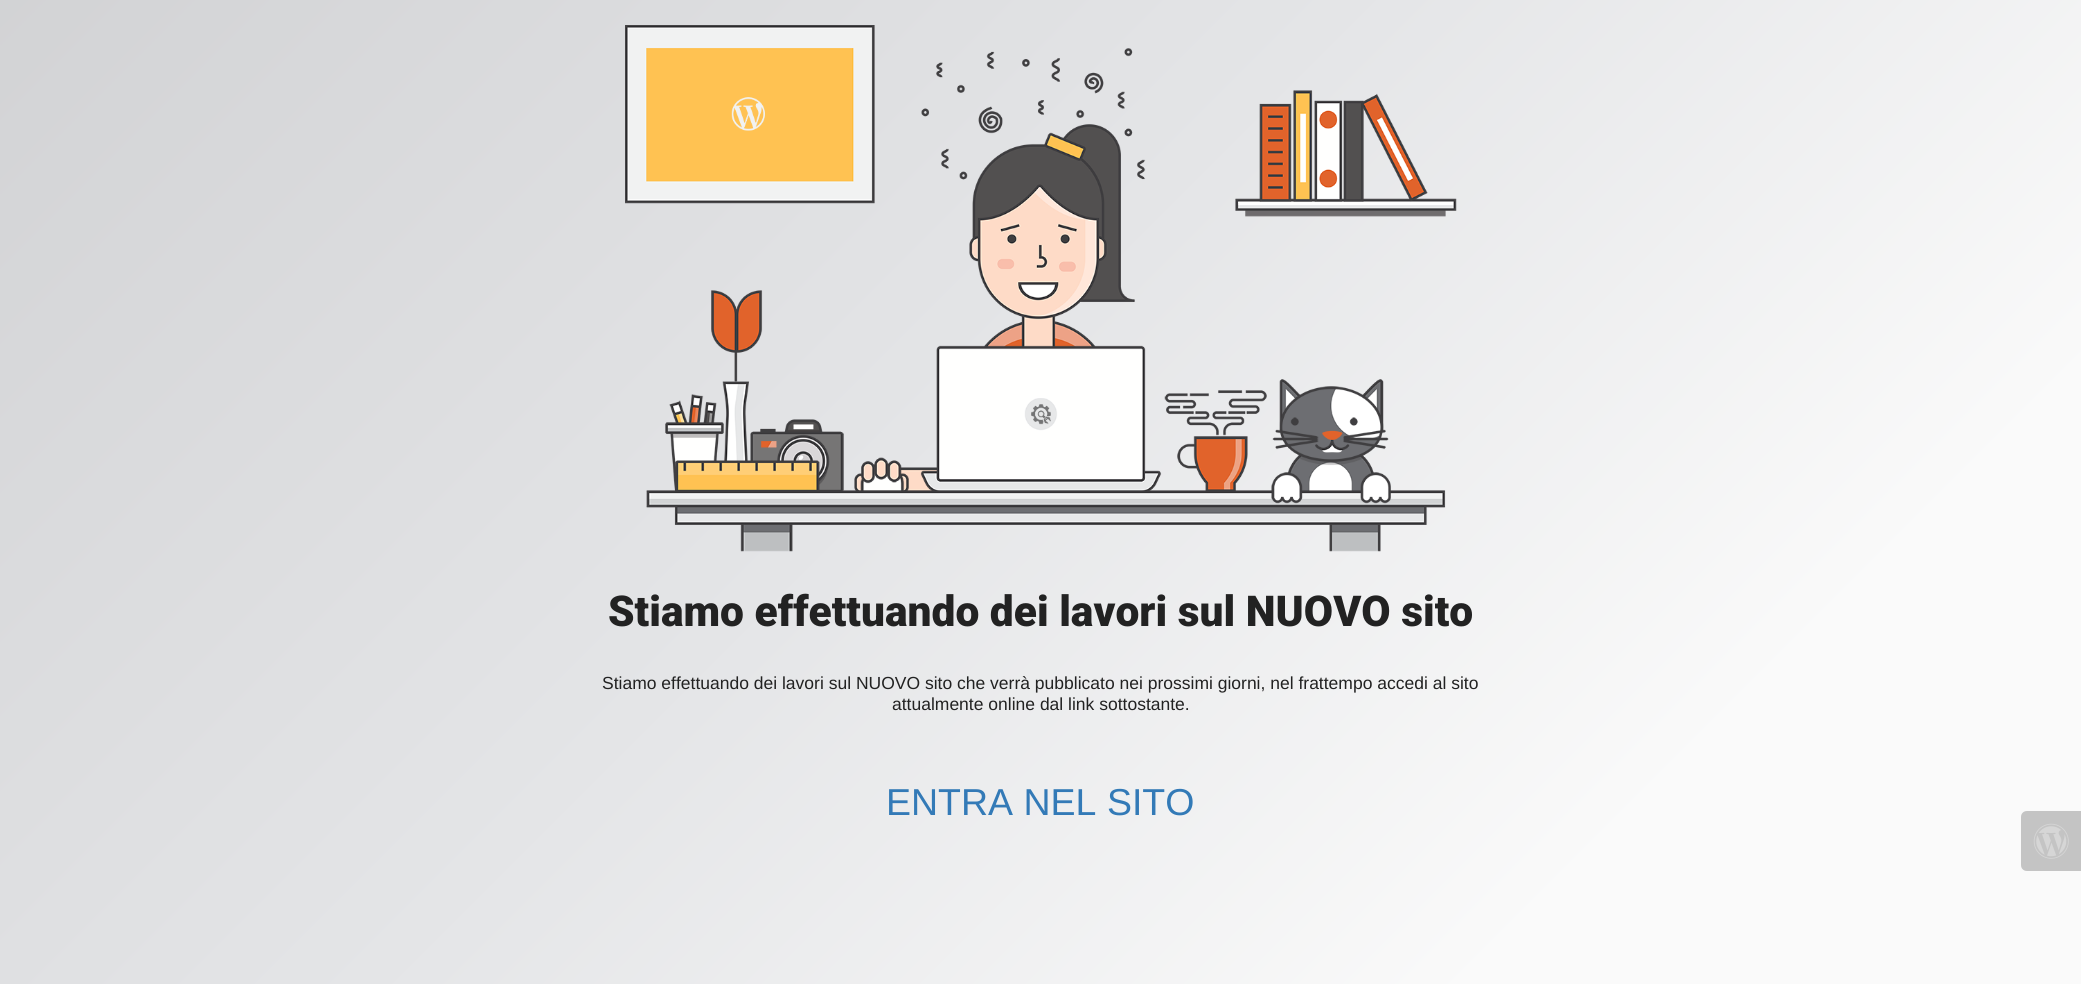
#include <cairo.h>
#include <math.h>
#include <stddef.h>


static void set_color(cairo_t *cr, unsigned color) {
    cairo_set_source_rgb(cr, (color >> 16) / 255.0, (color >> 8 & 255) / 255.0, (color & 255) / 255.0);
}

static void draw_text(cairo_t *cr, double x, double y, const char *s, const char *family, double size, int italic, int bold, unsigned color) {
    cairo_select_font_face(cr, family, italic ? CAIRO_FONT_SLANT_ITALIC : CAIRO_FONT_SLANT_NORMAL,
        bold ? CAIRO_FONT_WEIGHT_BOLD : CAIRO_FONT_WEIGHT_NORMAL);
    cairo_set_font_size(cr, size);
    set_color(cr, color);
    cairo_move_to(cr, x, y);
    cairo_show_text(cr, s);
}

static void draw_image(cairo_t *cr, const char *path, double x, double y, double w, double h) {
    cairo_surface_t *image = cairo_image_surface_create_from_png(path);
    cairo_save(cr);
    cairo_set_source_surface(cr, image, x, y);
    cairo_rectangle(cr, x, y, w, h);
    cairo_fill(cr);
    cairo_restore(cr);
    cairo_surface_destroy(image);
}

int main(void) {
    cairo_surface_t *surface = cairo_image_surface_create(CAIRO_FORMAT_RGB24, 2081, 984);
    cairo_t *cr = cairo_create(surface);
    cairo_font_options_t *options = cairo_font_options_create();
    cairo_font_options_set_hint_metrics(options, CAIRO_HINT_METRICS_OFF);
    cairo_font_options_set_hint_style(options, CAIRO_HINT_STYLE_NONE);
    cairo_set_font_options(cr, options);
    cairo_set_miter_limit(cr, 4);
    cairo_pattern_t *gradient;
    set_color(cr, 0xFFFFFF);
    cairo_paint(cr);
    gradient = cairo_pattern_create_linear(274, -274, 1807, 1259);
    cairo_pattern_add_color_stop_rgba(gradient, 0, 0.824, 0.827, 0.835, 1);
    cairo_pattern_add_color_stop_rgba(gradient, 0.44, 0.894, 0.898, 0.906, 1);
    cairo_pattern_add_color_stop_rgba(gradient, 0.8, 0.98, 0.98, 0.98, 1);
    cairo_set_source(cr, gradient);
    cairo_pattern_destroy(gradient);
    cairo_rectangle(cr, 0, 0, 2081, 984);
    cairo_fill(cr);
    draw_image(cr, "assets/img1.png", 625, 25, 832, 527);
    draw_text(cr, 608, 626, "Stiamo effettuando dei lavori sul NUOVO sito", "Roboto Black", 42.5, 0, 0, 0x222222);
    draw_text(cr, 602, 689, "Stiamo effettuando dei lavori sul NUOVO sito che verrà pubblicato nei prossimi giorni, nel frattempo accedi al sito", "Liberation Sans", 17.5, 0, 0, 0x222222);
    draw_text(cr, 892, 710, "attualmente online dal link sottostante.", "Liberation Sans", 17.5, 0, 0, 0x222222);
    draw_text(cr, 886, 815, "ENTRA NEL SITO", "Liberation Sans", 37.5, 0, 0, 0x337AB7);
    set_color(cr, 0xC4C4C4);
    cairo_new_path(cr);
    cairo_move_to(cr, 2027, 811);
    cairo_line_to(cr, 2081, 811);
    cairo_line_to(cr, 2081, 871);
    cairo_line_to(cr, 2027, 871);
    cairo_curve_to(cr, 2023.5, 871, 2021, 868.5, 2021, 865);
    cairo_line_to(cr, 2021, 817);
    cairo_curve_to(cr, 2021, 813.5, 2023.5, 811, 2027, 811);
    cairo_close_path(cr);
    cairo_fill(cr);
    draw_image(cr, "assets/img2.png", 2033, 823, 36, 36);
    cairo_surface_write_to_png(surface, "output.png");
    cairo_font_options_destroy(options);
    cairo_destroy(cr);
    cairo_surface_destroy(surface);
    return 0;
}
